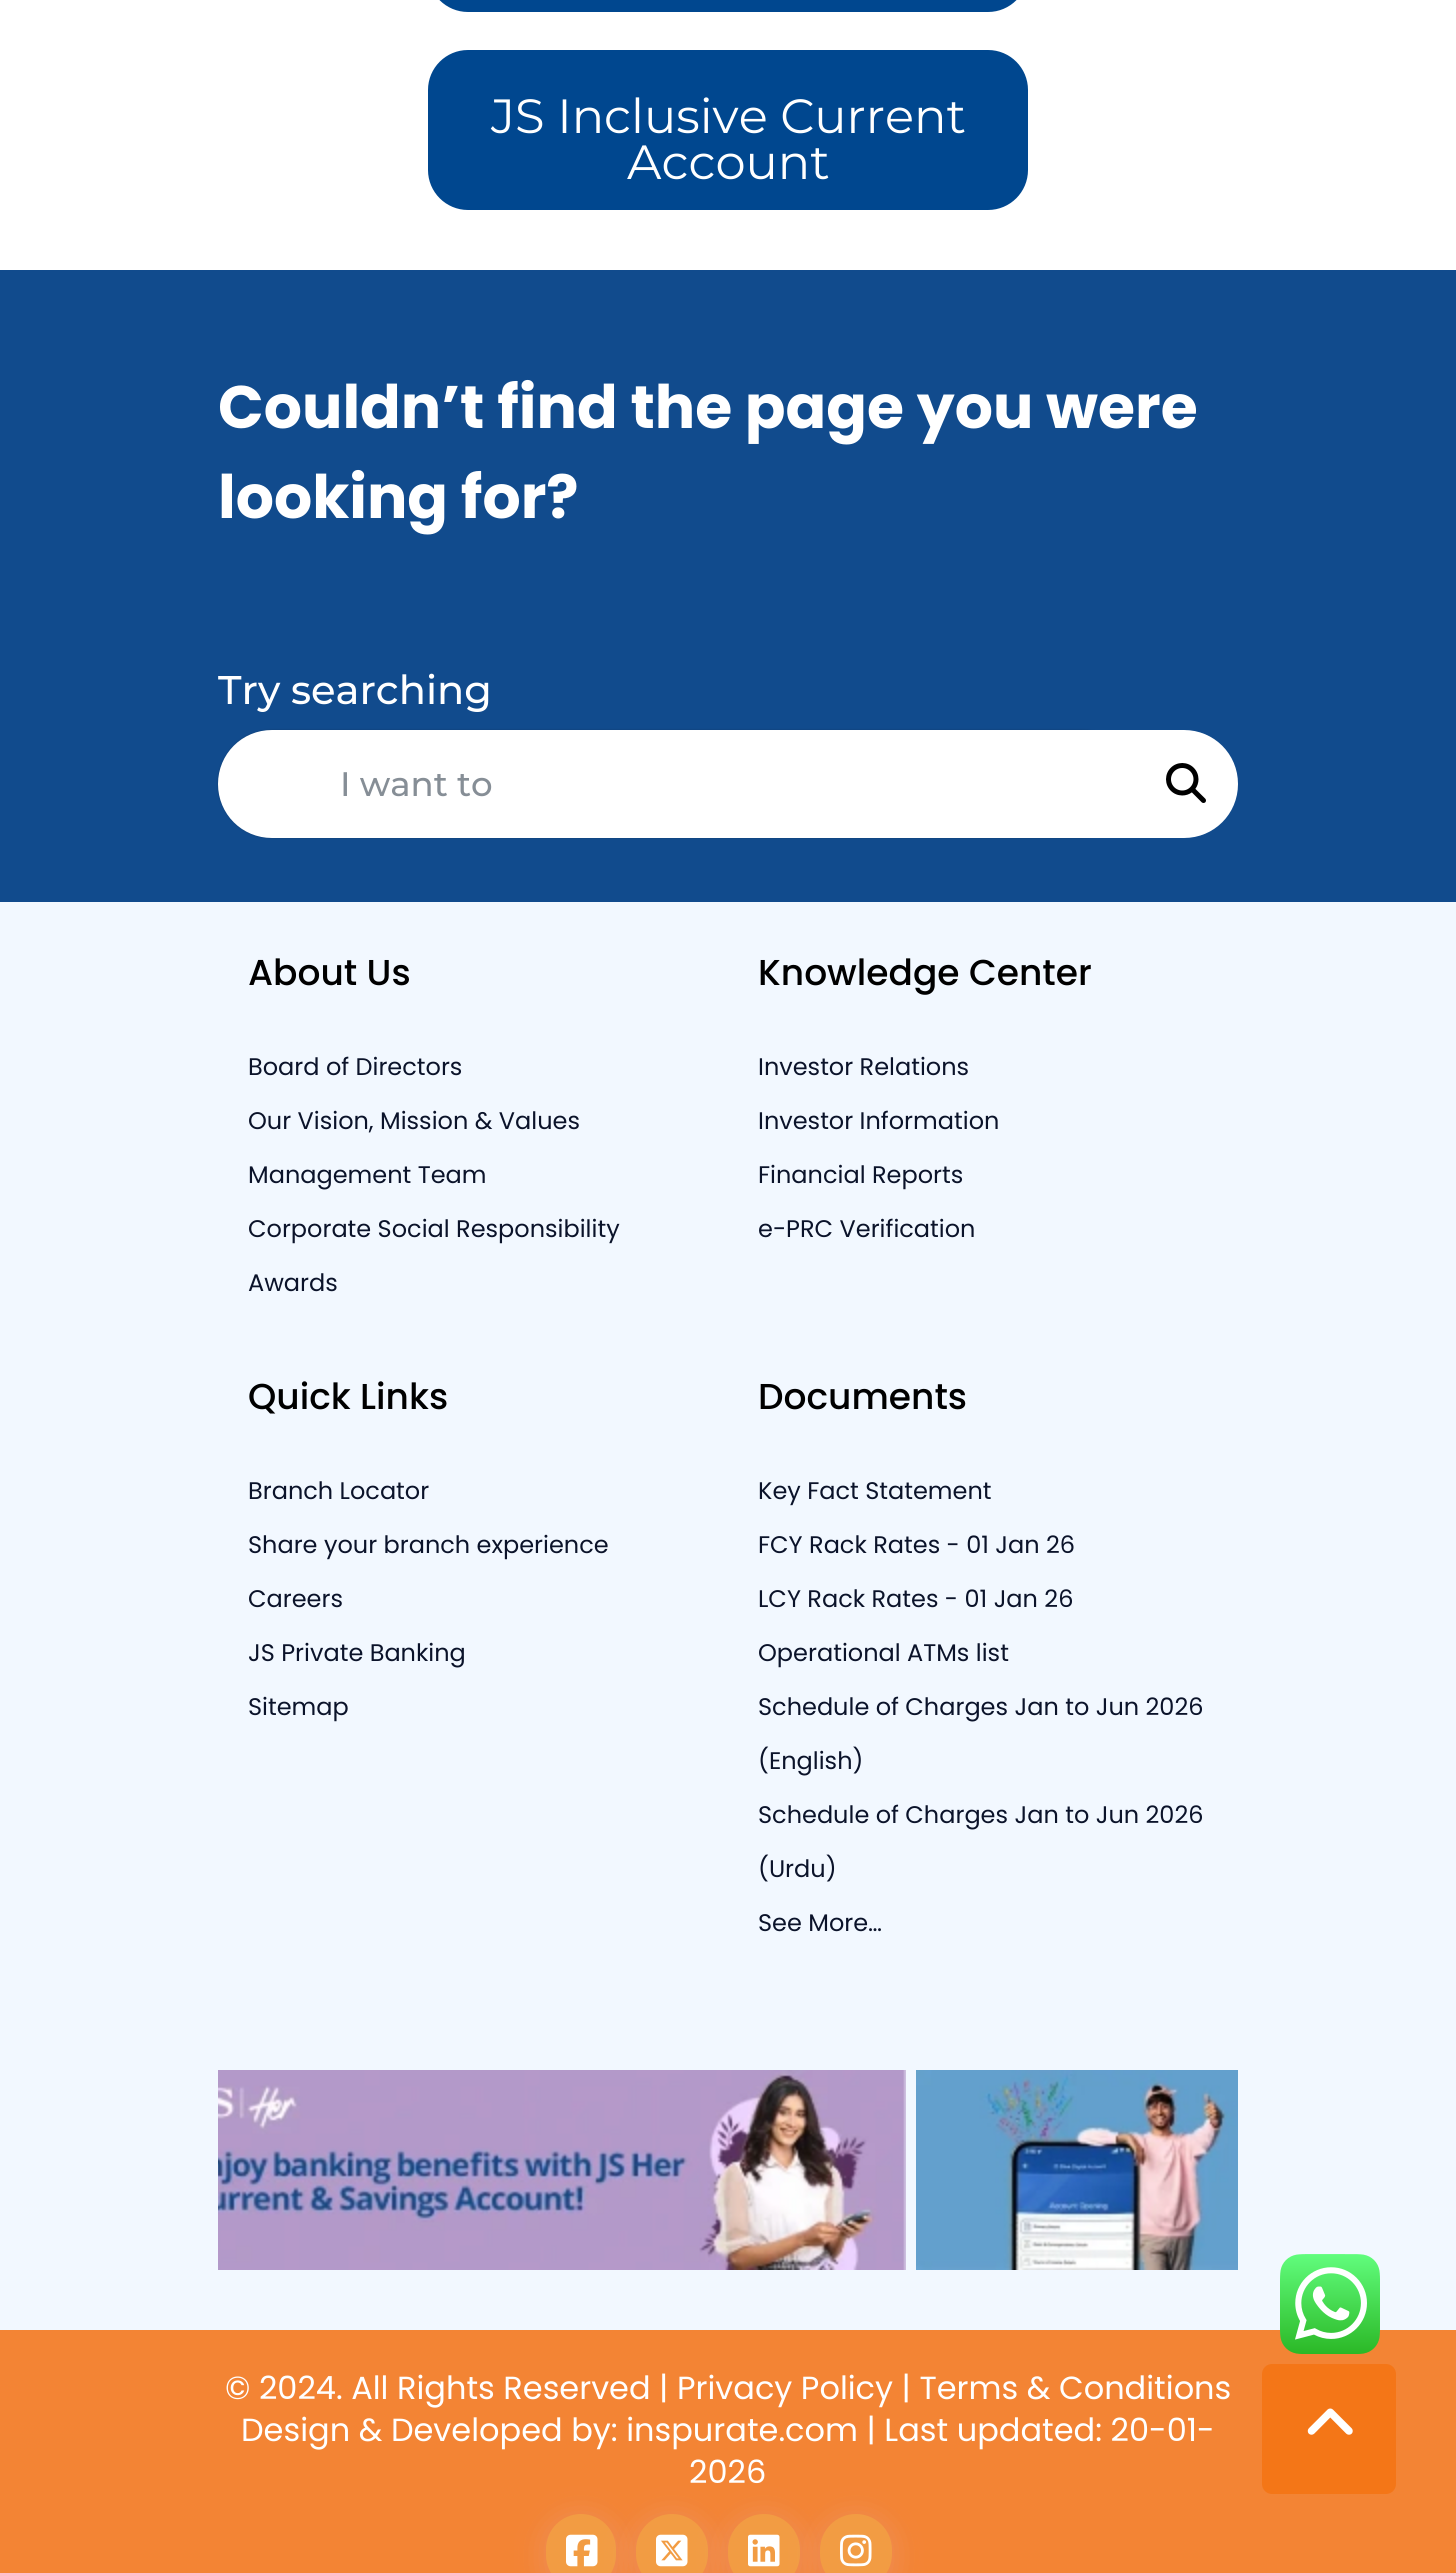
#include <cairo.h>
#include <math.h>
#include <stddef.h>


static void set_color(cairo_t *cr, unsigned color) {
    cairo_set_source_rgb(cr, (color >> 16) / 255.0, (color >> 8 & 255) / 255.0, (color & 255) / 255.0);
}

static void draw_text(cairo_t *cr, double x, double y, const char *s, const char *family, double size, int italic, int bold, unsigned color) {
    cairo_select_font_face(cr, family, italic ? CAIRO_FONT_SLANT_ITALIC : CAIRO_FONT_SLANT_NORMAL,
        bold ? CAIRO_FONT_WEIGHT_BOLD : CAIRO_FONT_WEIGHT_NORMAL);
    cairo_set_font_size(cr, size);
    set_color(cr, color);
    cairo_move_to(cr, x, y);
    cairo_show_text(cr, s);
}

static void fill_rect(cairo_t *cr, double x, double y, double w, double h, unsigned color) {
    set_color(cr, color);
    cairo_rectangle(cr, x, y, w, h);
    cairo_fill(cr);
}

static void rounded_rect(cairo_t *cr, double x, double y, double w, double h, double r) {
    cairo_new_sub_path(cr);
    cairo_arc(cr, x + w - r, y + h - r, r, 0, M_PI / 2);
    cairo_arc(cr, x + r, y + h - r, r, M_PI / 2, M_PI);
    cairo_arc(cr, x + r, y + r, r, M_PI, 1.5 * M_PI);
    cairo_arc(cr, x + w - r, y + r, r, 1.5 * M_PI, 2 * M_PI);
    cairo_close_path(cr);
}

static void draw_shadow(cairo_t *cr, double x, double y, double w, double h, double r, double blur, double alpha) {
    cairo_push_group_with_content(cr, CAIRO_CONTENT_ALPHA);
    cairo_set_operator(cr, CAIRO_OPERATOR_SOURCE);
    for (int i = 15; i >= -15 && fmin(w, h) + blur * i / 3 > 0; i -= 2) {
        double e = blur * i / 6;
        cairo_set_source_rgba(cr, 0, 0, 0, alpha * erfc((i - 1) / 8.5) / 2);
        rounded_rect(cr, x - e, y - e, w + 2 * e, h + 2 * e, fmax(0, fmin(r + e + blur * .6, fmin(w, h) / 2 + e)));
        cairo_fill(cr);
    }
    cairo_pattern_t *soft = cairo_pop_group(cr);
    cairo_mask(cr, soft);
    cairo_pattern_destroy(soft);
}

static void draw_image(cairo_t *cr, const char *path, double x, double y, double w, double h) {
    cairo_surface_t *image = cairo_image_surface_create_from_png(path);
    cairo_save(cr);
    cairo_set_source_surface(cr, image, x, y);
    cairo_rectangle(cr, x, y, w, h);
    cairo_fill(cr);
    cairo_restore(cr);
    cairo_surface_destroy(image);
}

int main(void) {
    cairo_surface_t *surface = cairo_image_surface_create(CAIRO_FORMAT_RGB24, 1456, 2573);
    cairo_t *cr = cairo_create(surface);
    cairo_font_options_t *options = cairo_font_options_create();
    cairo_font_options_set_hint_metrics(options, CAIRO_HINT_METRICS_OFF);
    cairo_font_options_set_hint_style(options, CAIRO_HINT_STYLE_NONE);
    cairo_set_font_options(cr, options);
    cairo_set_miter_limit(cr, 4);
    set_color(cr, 0xFFFFFF);
    cairo_paint(cr);
    set_color(cr, 0x00478F);
    rounded_rect(cr, 429, -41, 598, 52, 39);
    cairo_fill_preserve(cr);
    cairo_stroke(cr);
    rounded_rect(cr, 429, 51, 598, 158, 39);
    cairo_fill_preserve(cr);
    cairo_stroke(cr);
    draw_text(cr, 491, 133, "JS Inclusive Current", "Montserrat", 48, 0, 0, 0xFFFFFF);
    draw_text(cr, 627, 179, "Account", "Montserrat", 48, 0, 0, 0xFFFFFF);
    fill_rect(cr, 0, 270, 1456, 632, 0x114B8D);
    draw_text(cr, 218, 428, "Couldn’t find the page you were", "Poppins", 60, 0, 1, 0xFFFFFF);
    draw_text(cr, 218, 518, "looking for?", "Poppins", 60, 0, 1, 0xFFFFFF);
    draw_text(cr, 218, 704, "Try searching", "Montserrat Medium", 40, 0, 0, 0xFFFFFF);
    set_color(cr, 0x000000);
    draw_shadow(cr, 218, 730, 918, 108, 54, 1, 0.2);
    set_color(cr, 0xFFFFFF);
    cairo_new_path(cr);
    cairo_move_to(cr, 272, 731);
    cairo_line_to(cr, 1135, 731);
    cairo_line_to(cr, 1135, 837);
    cairo_line_to(cr, 272, 837);
    cairo_curve_to(cr, 242.5, 837, 219, 813.5, 219, 784);
    cairo_curve_to(cr, 219, 754.5, 242.5, 731, 272, 731);
    cairo_close_path(cr);
    cairo_fill_preserve(cr);
    cairo_stroke(cr);
    draw_text(cr, 340, 796, "I want to", "Montserrat Medium", 34, 0, 0, 0x868E96);
    set_color(cr, 0xFFFFFF);
    cairo_new_path(cr);
    cairo_move_to(cr, 1134, 730);
    cairo_line_to(cr, 1184, 730);
    cairo_curve_to(cr, 1214, 730, 1238, 754, 1238, 784);
    cairo_curve_to(cr, 1238, 814, 1214, 838, 1184, 838);
    cairo_line_to(cr, 1134, 838);
    cairo_close_path(cr);
    cairo_fill(cr);
    draw_image(cr, "assets/img1.png", 1166, 763, 40, 40);
    fill_rect(cr, 0, 902, 1456, 1428, 0xF2F8FF);
    draw_text(cr, 248, 985, "About Us", "Poppins Medium", 36, 0, 0, 0x000000);
    draw_text(cr, 248, 1075, "Board of Directors", "Poppins", 24, 0, 0, 0x0B132A);
    draw_text(cr, 248, 1129, "Our Vision, Mission & Values", "Poppins", 24, 0, 0, 0x0B132A);
    draw_text(cr, 248, 1183, "Management Team", "Poppins", 24, 0, 0, 0x0B132A);
    draw_text(cr, 248, 1237, "Corporate Social Responsibility", "Poppins", 24, 0, 0, 0x0B132A);
    draw_text(cr, 248, 1291, "Awards", "Poppins", 24, 0, 0, 0x0B132A);
    draw_text(cr, 758, 985, "Knowledge Center", "Poppins Medium", 36, 0, 0, 0x000000);
    draw_text(cr, 758, 1075, "Investor Relations", "Poppins", 24, 0, 0, 0x0B132A);
    draw_text(cr, 758, 1129, "Investor Information", "Poppins", 24, 0, 0, 0x0B132A);
    draw_text(cr, 758, 1183, "Financial Reports", "Poppins", 24, 0, 0, 0x0B132A);
    draw_text(cr, 758, 1237, "e-PRC Verification", "Poppins", 24, 0, 0, 0x0B132A);
    draw_text(cr, 248, 1409, "Quick Links", "Poppins Medium", 36, 0, 0, 0x000000);
    draw_text(cr, 248, 1499, "Branch Locator", "Poppins", 24, 0, 0, 0x0B132A);
    draw_text(cr, 248, 1553, "Share your branch experience", "Poppins", 24, 0, 0, 0x0B132A);
    draw_text(cr, 248, 1607, "Careers", "Poppins", 24, 0, 0, 0x0B132A);
    draw_text(cr, 248, 1661, "JS Private Banking", "Poppins", 24, 0, 0, 0x0B132A);
    draw_text(cr, 248, 1715, "Sitemap", "Poppins", 24, 0, 0, 0x0B132A);
    draw_text(cr, 758, 1409, "Documents", "Poppins Medium", 36, 0, 0, 0x000000);
    draw_text(cr, 758, 1499, "Key Fact Statement", "Poppins", 24, 0, 0, 0x0B132A);
    draw_text(cr, 758, 1553, "FCY Rack Rates - 01 Jan 26", "Poppins", 24, 0, 0, 0x0B132A);
    draw_text(cr, 758, 1607, "LCY Rack Rates - 01 Jan 26", "Poppins", 24, 0, 0, 0x0B132A);
    draw_text(cr, 758, 1661, "Operational ATMs list", "Poppins", 24, 0, 0, 0x0B132A);
    draw_text(cr, 758, 1715, "Schedule of Charges Jan to Jun 2026", "Poppins", 24, 0, 0, 0x0B132A);
    draw_text(cr, 758, 1769, "(English)", "Poppins", 24, 0, 0, 0x0B132A);
    draw_text(cr, 758, 1823, "Schedule of Charges Jan to Jun 2026", "Poppins", 24, 0, 0, 0x0B132A);
    draw_text(cr, 758, 1877, "(Urdu)", "Poppins", 24, 0, 0, 0x0B132A);
    draw_text(cr, 758, 1931, "See More…", "Poppins", 24, 0, 0, 0x0B132A);
    draw_image(cr, "assets/img2.png", 218, 2070, 688, 200);
    draw_image(cr, "assets/img3.png", 916, 2070, 322, 200);
    fill_rect(cr, 0, 2330, 1456, 243, 0xF38434);
    draw_text(cr, 225, 2399, "© 2024. All Rights Reserved | Privacy Policy | Terms & Conditions", "Poppins", 32, 0, 0, 0xFFFFFF);
    draw_text(cr, 241, 2441, "Design & Developed by: inspurate.com | Last updated: 20-01-", "Poppins", 32, 0, 0, 0xFFFFFF);
    draw_text(cr, 689, 2483, "2026", "Poppins", 32, 0, 0, 0xFFFFFF);
    set_color(cr, 0xE0ADD1);
    draw_shadow(cr, 546, 2518, 70, 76, 35, 15, 0.25);
    set_color(cr, 0xF29C43);
    rounded_rect(cr, 546, 2514, 70, 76, 35);
    cairo_fill(cr);
    draw_image(cr, "assets/img4.png", 566, 2534, 32, 33);
    set_color(cr, 0xE0ADD1);
    draw_shadow(cr, 636, 2518, 72, 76, 36, 15, 0.25);
    set_color(cr, 0xF29C43);
    rounded_rect(cr, 636, 2514, 72, 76, 36);
    cairo_fill(cr);
    draw_image(cr, "assets/img5.png", 656, 2534, 32, 33);
    set_color(cr, 0xE0ADD1);
    draw_shadow(cr, 728, 2518, 72, 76, 36, 15, 0.25);
    set_color(cr, 0xF29C43);
    rounded_rect(cr, 728, 2514, 72, 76, 36);
    cairo_fill(cr);
    draw_image(cr, "assets/img6.png", 748, 2534, 32, 33);
    set_color(cr, 0xE0ADD1);
    draw_shadow(cr, 820, 2518, 72, 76, 36, 15, 0.25);
    set_color(cr, 0xF29C43);
    rounded_rect(cr, 820, 2514, 72, 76, 36);
    cairo_fill(cr);
    draw_image(cr, "assets/img7.png", 840, 2534, 32, 33);
    draw_image(cr, "assets/img8.png", 1280, 2254, 100, 100);
    set_color(cr, 0xF47617);
    rounded_rect(cr, 1262, 2364, 134, 130, 10);
    cairo_fill(cr);
    draw_image(cr, "assets/img9.png", 1307, 2408, 46, 27);
    cairo_surface_write_to_png(surface, "output.png");
    cairo_font_options_destroy(options);
    cairo_destroy(cr);
    cairo_surface_destroy(surface);
    return 0;
}
